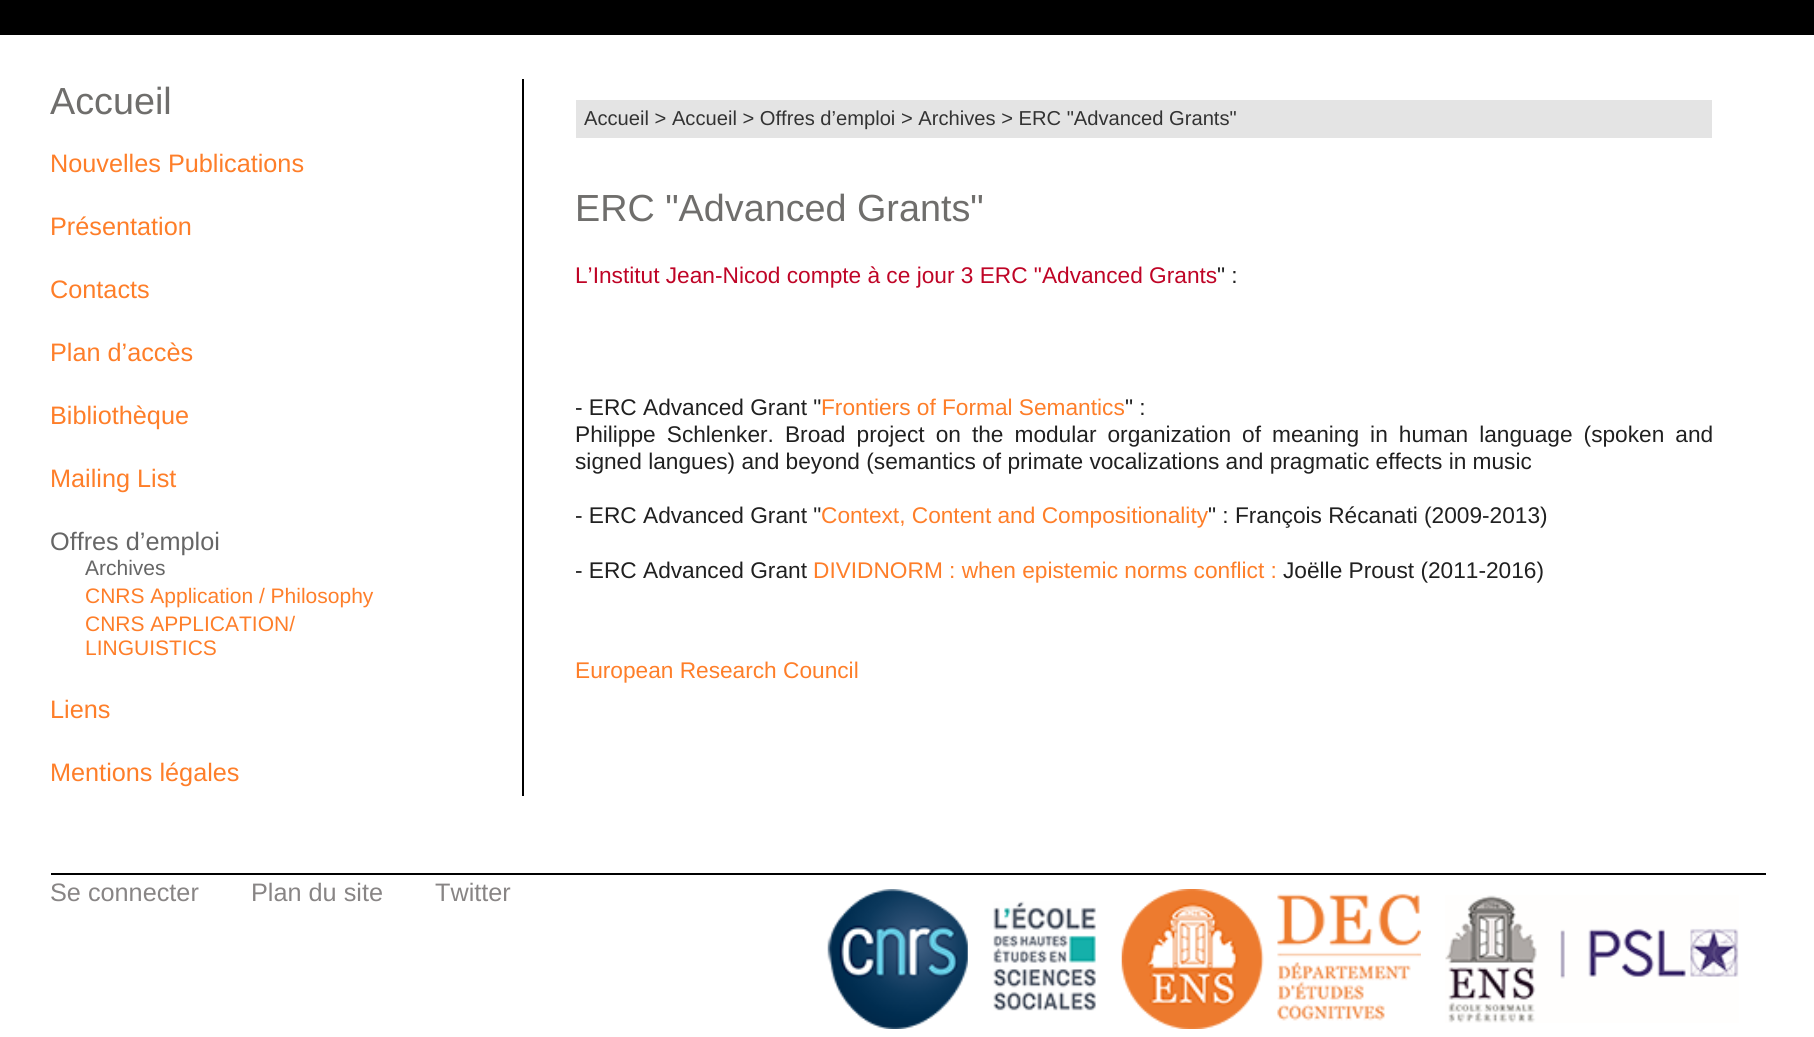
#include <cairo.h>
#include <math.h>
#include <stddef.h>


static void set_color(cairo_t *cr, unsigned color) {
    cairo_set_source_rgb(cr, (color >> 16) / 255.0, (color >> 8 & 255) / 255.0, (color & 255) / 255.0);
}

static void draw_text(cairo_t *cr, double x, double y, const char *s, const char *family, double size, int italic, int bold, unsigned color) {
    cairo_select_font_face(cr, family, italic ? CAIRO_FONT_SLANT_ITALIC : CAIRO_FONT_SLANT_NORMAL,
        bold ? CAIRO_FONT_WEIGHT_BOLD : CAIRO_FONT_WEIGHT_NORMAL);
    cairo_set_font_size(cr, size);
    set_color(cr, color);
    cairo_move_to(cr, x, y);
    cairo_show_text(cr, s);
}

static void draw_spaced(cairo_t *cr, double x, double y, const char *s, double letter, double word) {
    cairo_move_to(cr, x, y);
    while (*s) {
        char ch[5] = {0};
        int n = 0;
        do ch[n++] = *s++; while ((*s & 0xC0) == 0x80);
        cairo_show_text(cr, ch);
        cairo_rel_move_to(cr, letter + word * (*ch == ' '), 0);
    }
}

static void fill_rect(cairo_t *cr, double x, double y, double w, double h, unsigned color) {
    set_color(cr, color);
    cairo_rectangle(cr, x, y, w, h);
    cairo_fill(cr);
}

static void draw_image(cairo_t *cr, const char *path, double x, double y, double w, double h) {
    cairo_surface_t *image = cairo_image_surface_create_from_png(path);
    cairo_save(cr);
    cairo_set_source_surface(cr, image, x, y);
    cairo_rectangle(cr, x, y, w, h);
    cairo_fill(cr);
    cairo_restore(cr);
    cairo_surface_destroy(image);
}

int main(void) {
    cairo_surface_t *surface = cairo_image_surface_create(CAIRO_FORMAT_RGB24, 1814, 1037);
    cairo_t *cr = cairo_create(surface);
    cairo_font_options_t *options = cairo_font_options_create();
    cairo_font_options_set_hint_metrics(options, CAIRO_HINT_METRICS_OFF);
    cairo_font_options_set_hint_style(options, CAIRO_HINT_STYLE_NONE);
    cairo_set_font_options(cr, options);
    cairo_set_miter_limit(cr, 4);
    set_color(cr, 0xFFFFFF);
    cairo_paint(cr);
    fill_rect(cr, 0, 0, 1814, 35, 0x000000);
    draw_text(cr, 50, 114, "Accueil", "Liberation Sans", 37.75, 0, 0, 0x6F6E6C);
    draw_text(cr, 50, 172, "Nouvelles Publications", "Liberation Sans", 25.25, 0, 0, 0xFE7E29);
    draw_text(cr, 50, 235, "Présentation", "Liberation Sans", 25.25, 0, 0, 0xFE7E29);
    draw_text(cr, 50, 298, "Contacts", "Liberation Sans", 25.25, 0, 0, 0xFE7E29);
    draw_text(cr, 50, 361, "Plan d’accès", "Liberation Sans", 25.25, 0, 0, 0xFE7E29);
    draw_text(cr, 50, 424, "Bibliothèque", "Liberation Sans", 25.25, 0, 0, 0xFE7E29);
    draw_text(cr, 50, 487, "Mailing List", "Liberation Sans", 25.25, 0, 0, 0xFE7E29);
    draw_text(cr, 50, 550, "Offres d’emploi", "Liberation Sans", 25.25, 0, 0, 0x666666);
    draw_text(cr, 85, 575, "Archives", "Liberation Sans", 21, 0, 0, 0x666666);
    draw_text(cr, 85, 603, "CNRS Application / Philosophy", "Liberation Sans", 21, 0, 0, 0xFE7E29);
    draw_text(cr, 85, 631, "CNRS APPLICATION/", "Liberation Sans", 21, 0, 0, 0xFE7E29);
    draw_text(cr, 85, 655, "LINGUISTICS", "Liberation Sans", 21, 0, 0, 0xFE7E29);
    draw_text(cr, 50, 718, "Liens", "Liberation Sans", 25.25, 0, 0, 0xFE7E29);
    draw_text(cr, 50, 781, "Mentions légales", "Liberation Sans", 25.25, 0, 0, 0xFE7E29);
    fill_rect(cr, 522, 79, 2, 717, 0x000000);
    fill_rect(cr, 576, 100, 1136, 38, 0xE4E4E4);
    draw_text(cr, 584, 125, "Accueil > Accueil > Offres d’emploi > Archives > ERC \"Advanced Grants\"", "Liberation Sans", 20.15, 0, 0, 0x333333);
    draw_text(cr, 575, 221, "ERC \"Advanced Grants\"", "Liberation Sans", 37.75, 0, 0, 0x6F6E6C);
    draw_text(cr, 575, 283, "L’Institut Jean-Nicod compte à ce jour 3 ERC \"Advanced Grants", "Liberation Sans", 22.68, 0, 0, 0xBF0426);
    draw_text(cr, 1217, 283, "\" :", "Liberation Sans", 22.68, 0, 0, 0x202020);
    draw_text(cr, 575, 415, "- ERC Advanced Grant \"", "Liberation Sans", 22.68, 0, 0, 0x202020);
    draw_text(cr, 821, 415, "Frontiers of Formal Semantics", "Liberation Sans", 22.68, 0, 0, 0xFE7E29);
    draw_text(cr, 1125, 415, "\" :", "Liberation Sans", 22.68, 0, 0, 0x202020);
    draw_spaced(cr, 575, 442, "Philippe Schlenker. Broad project on the modular organization of meaning in human language (spoken and", 0, 4.75);
    draw_text(cr, 575, 469, "signed langues) and beyond (semantics of primate vocalizations and pragmatic effects in music", "Liberation Sans", 22.68, 0, 0, 0x202020);
    draw_text(cr, 575, 523, "- ERC Advanced Grant \"", "Liberation Sans", 22.68, 0, 0, 0x202020);
    draw_text(cr, 821, 523, "Context, Content and Compositionality", "Liberation Sans", 22.68, 0, 0, 0xFE7E29);
    draw_text(cr, 1208, 523, "\" : François Récanati (2009-2013)", "Liberation Sans", 22.68, 0, 0, 0x202020);
    draw_text(cr, 575, 578, "- ERC Advanced Grant", "Liberation Sans", 22.68, 0, 0, 0x202020);
    draw_text(cr, 813, 578, "DIVIDNORM : when epistemic norms conflict :", "Liberation Sans", 22.68, 0, 0, 0xFE7E29);
    draw_text(cr, 1283, 578, "Joëlle Proust (2011-2016)", "Liberation Sans", 22.68, 0, 0, 0x202020);
    draw_text(cr, 575, 678, "European Research Council", "Liberation Sans", 22.68, 0, 0, 0xFE7E29);
    fill_rect(cr, 51, 873, 1715, 2, 0x000000);
    draw_text(cr, 50, 901, "Se connecter", "Liberation Sans", 25.25, 0, 0, 0x888585);
    draw_text(cr, 251, 901, "Plan du site", "Liberation Sans", 25.25, 0, 0, 0x888585);
    draw_text(cr, 435, 901, "Twitter", "Liberation Sans", 25.25, 0, 0, 0x888585);
    draw_image(cr, "assets/img1.png", 827, 889, 141, 140);
    draw_image(cr, "assets/img2.png", 993, 901, 103, 110);
    draw_image(cr, "assets/img3.png", 1121, 889, 300, 140);
    draw_image(cr, "assets/img4.png", 1445, 895, 294, 128);
    cairo_surface_write_to_png(surface, "output.png");
    cairo_font_options_destroy(options);
    cairo_destroy(cr);
    cairo_surface_destroy(surface);
    return 0;
}
